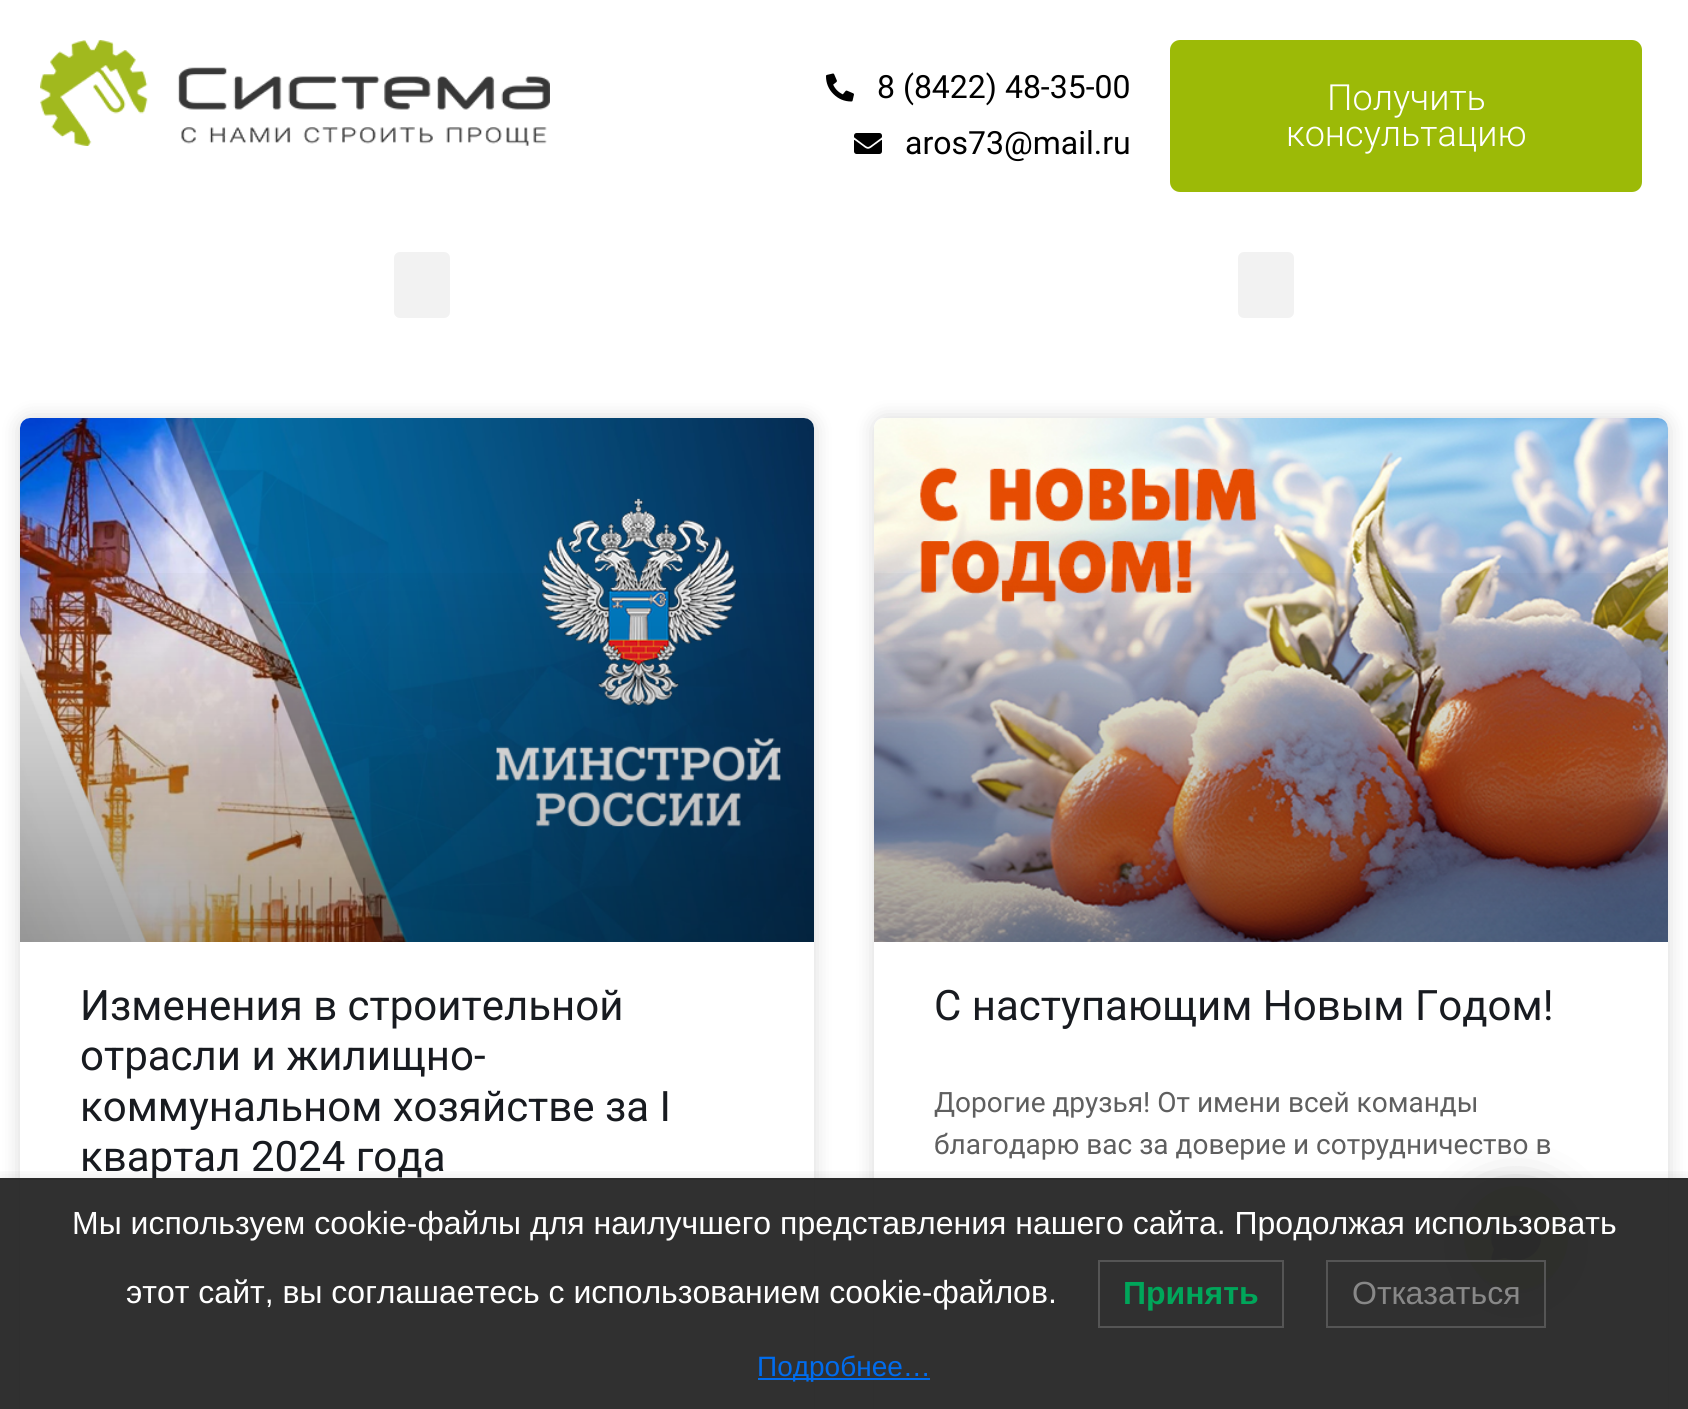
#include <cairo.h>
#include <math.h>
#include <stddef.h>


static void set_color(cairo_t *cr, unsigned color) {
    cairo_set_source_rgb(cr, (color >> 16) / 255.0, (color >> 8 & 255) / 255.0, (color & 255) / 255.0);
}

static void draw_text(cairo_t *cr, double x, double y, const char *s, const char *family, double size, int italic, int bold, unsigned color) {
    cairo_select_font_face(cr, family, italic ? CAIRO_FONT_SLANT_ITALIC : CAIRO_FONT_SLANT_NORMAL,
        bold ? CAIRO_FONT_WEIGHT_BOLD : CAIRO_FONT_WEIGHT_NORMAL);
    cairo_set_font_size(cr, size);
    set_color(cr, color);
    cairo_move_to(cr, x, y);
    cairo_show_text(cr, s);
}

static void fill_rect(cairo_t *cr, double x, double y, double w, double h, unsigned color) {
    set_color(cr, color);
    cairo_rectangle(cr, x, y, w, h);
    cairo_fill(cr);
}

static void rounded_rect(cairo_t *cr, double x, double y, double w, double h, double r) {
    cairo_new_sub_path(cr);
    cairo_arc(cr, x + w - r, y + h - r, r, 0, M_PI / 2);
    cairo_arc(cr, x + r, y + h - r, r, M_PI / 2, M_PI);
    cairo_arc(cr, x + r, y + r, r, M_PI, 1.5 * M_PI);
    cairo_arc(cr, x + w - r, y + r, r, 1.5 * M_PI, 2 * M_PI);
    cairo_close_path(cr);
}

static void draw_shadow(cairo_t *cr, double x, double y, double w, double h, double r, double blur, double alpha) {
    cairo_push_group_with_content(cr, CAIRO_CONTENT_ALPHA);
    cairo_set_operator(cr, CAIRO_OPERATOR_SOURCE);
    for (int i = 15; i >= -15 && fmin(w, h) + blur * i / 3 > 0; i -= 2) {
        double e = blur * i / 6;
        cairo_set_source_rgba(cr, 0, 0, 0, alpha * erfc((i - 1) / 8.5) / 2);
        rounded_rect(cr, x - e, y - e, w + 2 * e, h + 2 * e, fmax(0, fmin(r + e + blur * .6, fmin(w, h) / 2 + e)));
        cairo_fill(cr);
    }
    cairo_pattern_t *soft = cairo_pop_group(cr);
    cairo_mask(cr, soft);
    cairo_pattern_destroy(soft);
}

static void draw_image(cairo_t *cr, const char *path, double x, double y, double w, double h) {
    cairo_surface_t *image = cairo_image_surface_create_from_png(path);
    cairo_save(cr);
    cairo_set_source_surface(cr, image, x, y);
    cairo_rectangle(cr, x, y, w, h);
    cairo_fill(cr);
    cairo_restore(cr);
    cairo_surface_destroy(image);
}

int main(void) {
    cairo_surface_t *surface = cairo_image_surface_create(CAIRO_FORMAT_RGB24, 1688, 1409);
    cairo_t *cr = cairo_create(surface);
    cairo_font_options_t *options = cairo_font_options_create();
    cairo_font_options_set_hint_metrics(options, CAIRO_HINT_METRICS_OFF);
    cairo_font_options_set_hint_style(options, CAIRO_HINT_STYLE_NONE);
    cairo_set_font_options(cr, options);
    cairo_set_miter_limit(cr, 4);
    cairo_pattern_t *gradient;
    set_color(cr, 0xFFFFFF);
    cairo_paint(cr);
    draw_image(cr, "assets/img1.png", 40, 40, 510, 106);
    draw_image(cr, "assets/img2.png", 826, 73, 28, 29);
    draw_text(cr, 877, 98, "8 (8422) 48-35-00", "Roboto", 32, 0, 0, 0x000000);
    draw_image(cr, "assets/img3.png", 854, 133, 28, 21);
    draw_text(cr, 905, 154, "aros73@mail.ru", "Roboto", 32, 0, 0, 0x000000);
    set_color(cr, 0x9CBA07);
    rounded_rect(cr, 1170, 40, 472, 152, 10);
    cairo_fill(cr);
    draw_text(cr, 1327, 110, "Получить", "Roboto Light", 36, 0, 0, 0xFFFFFF);
    draw_text(cr, 1286, 146, "консультацию", "Roboto Light", 36, 0, 0, 0xFFFFFF);
    set_color(cr, 0xF2F2F2);
    rounded_rect(cr, 394, 252, 56, 66, 6);
    cairo_fill(cr);
    rounded_rect(cr, 1238, 252, 56, 66, 6);
    cairo_fill(cr);
    set_color(cr, 0x000000);
    draw_shadow(cr, 20, 418, 794, 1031, 10, 10, 0.15);
    set_color(cr, 0xFFFFFF);
    rounded_rect(cr, 20, 418, 794, 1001, 10);
    cairo_fill(cr);
    draw_image(cr, "assets/img4.png", 20, 418, 794, 524);
    gradient = cairo_pattern_create_linear(417, 942, 417, 418);
    cairo_pattern_add_color_stop_rgba(gradient, 0, 0, 0, 0, 0.35);
    cairo_pattern_add_color_stop_rgba(gradient, 0.75, 0, 0, 0, 0);
    cairo_set_source(cr, gradient);
    cairo_pattern_destroy(gradient);
    cairo_rectangle(cr, 20, 573, 794, 369);
    cairo_fill(cr);
    draw_text(cr, 80, 1020, "Изменения в строительной", "Roboto", 42, 0, 0, 0x181B20);
    draw_text(cr, 80, 1070, "отрасли и жилищно-", "Roboto", 42, 0, 0, 0x181B20);
    draw_text(cr, 80, 1121, "коммунальном хозяйстве за I", "Roboto", 42, 0, 0, 0x181B20);
    draw_text(cr, 80, 1171, "квартал 2024 года", "Roboto", 42, 0, 0, 0x181B20);
    set_color(cr, 0x000000);
    draw_shadow(cr, 874, 418, 794, 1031, 10, 10, 0.15);
    set_color(cr, 0xFFFFFF);
    rounded_rect(cr, 874, 418, 794, 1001, 10);
    cairo_fill(cr);
    draw_image(cr, "assets/img5.png", 874, 418, 794, 524);
    gradient = cairo_pattern_create_linear(1271, 942, 1271, 418);
    cairo_pattern_add_color_stop_rgba(gradient, 0, 0, 0, 0, 0.35);
    cairo_pattern_add_color_stop_rgba(gradient, 0.75, 0, 0, 0, 0);
    cairo_set_source(cr, gradient);
    cairo_pattern_destroy(gradient);
    cairo_rectangle(cr, 874, 573, 794, 369);
    cairo_fill(cr);
    draw_text(cr, 934, 1020, "С наступающим Новым Годом!", "Roboto", 42, 0, 0, 0x181B20);
    draw_text(cr, 934, 1112, "Дорогие друзья! От имени всей команды", "Roboto", 28, 0, 0, 0x5F5F5F);
    draw_text(cr, 934, 1154, "благодарю вас за доверие и сотрудничество в", "Roboto", 28, 0, 0, 0x5F5F5F);
    set_color(cr, 0x000000);
    draw_shadow(cr, 1464, 1194, 104, 104, 52, 24, 0.35);
    set_color(cr, 0xB1CA4B);
    cairo_arc(cr, 1516, 1238, 52, 0, 2 * M_PI);
    cairo_fill(cr);
    set_color(cr, 0x2A2A2F);
    cairo_new_path(cr);
    cairo_move_to(cr, 1501, 1220);
    cairo_curve_to(cr, 1507, 1216, 1514, 1215, 1522, 1216);
    cairo_curve_to(cr, 1527, 1217, 1533, 1220, 1536, 1225);
    cairo_curve_to(cr, 1552, 1245, 1527, 1268, 1505, 1258);
    cairo_curve_to(cr, 1490, 1261, 1489, 1263, 1494, 1249);
    cairo_curve_to(cr, 1489, 1241, 1491, 1230, 1497, 1223);
    cairo_close_path(cr);
    cairo_fill(cr);
    cairo_save(cr);
    cairo_rectangle(cr, 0, 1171, 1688, 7);
    cairo_clip(cr);
    set_color(cr, 0x000000);
    draw_shadow(cr, 0, 1178, 1688, 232, 0, 8, 0.1);
    cairo_restore(cr);
    cairo_set_source_rgba(cr, 0.169, 0.169, 0.169, 0.97);
    cairo_rectangle(cr, 0, 1180, 1688, 229);
    cairo_fill(cr);
    fill_rect(cr, 0, 1178, 1688, 2, 0x2B2B2B);
    draw_text(cr, 72, 1234, "Мы используем cookie-файлы для наилучшего представления нашего сайта. Продолжая использовать", "Liberation Sans", 32, 0, 0, 0xFFFFFF);
    draw_text(cr, 126, 1303, "этот сайт, вы соглашаетесь с использованием cookie-файлов.", "Liberation Sans", 32, 0, 0, 0xFFFFFF);
    cairo_rectangle(cr, 1099, 1261, 184, 66);
    set_color(cr, 0x555555);
    cairo_stroke(cr);
    draw_text(cr, 1123, 1304, "Принять", "Liberation Sans", 32, 0, 1, 0x00A65A);
    cairo_rectangle(cr, 1327, 1261, 218, 66);
    set_color(cr, 0x555555);
    cairo_stroke(cr);
    draw_text(cr, 1352, 1304, "Отказаться", "Liberation Sans", 32, 0, 0, 0x888888);
    fill_rect(cr, 758, 1378, 172, 2, 0x006CEE);
    draw_text(cr, 757, 1376, "Подробнее…", "Liberation Sans", 28, 0, 0, 0x006CEE);
    cairo_surface_write_to_png(surface, "output.png");
    cairo_font_options_destroy(options);
    cairo_destroy(cr);
    cairo_surface_destroy(surface);
    return 0;
}
